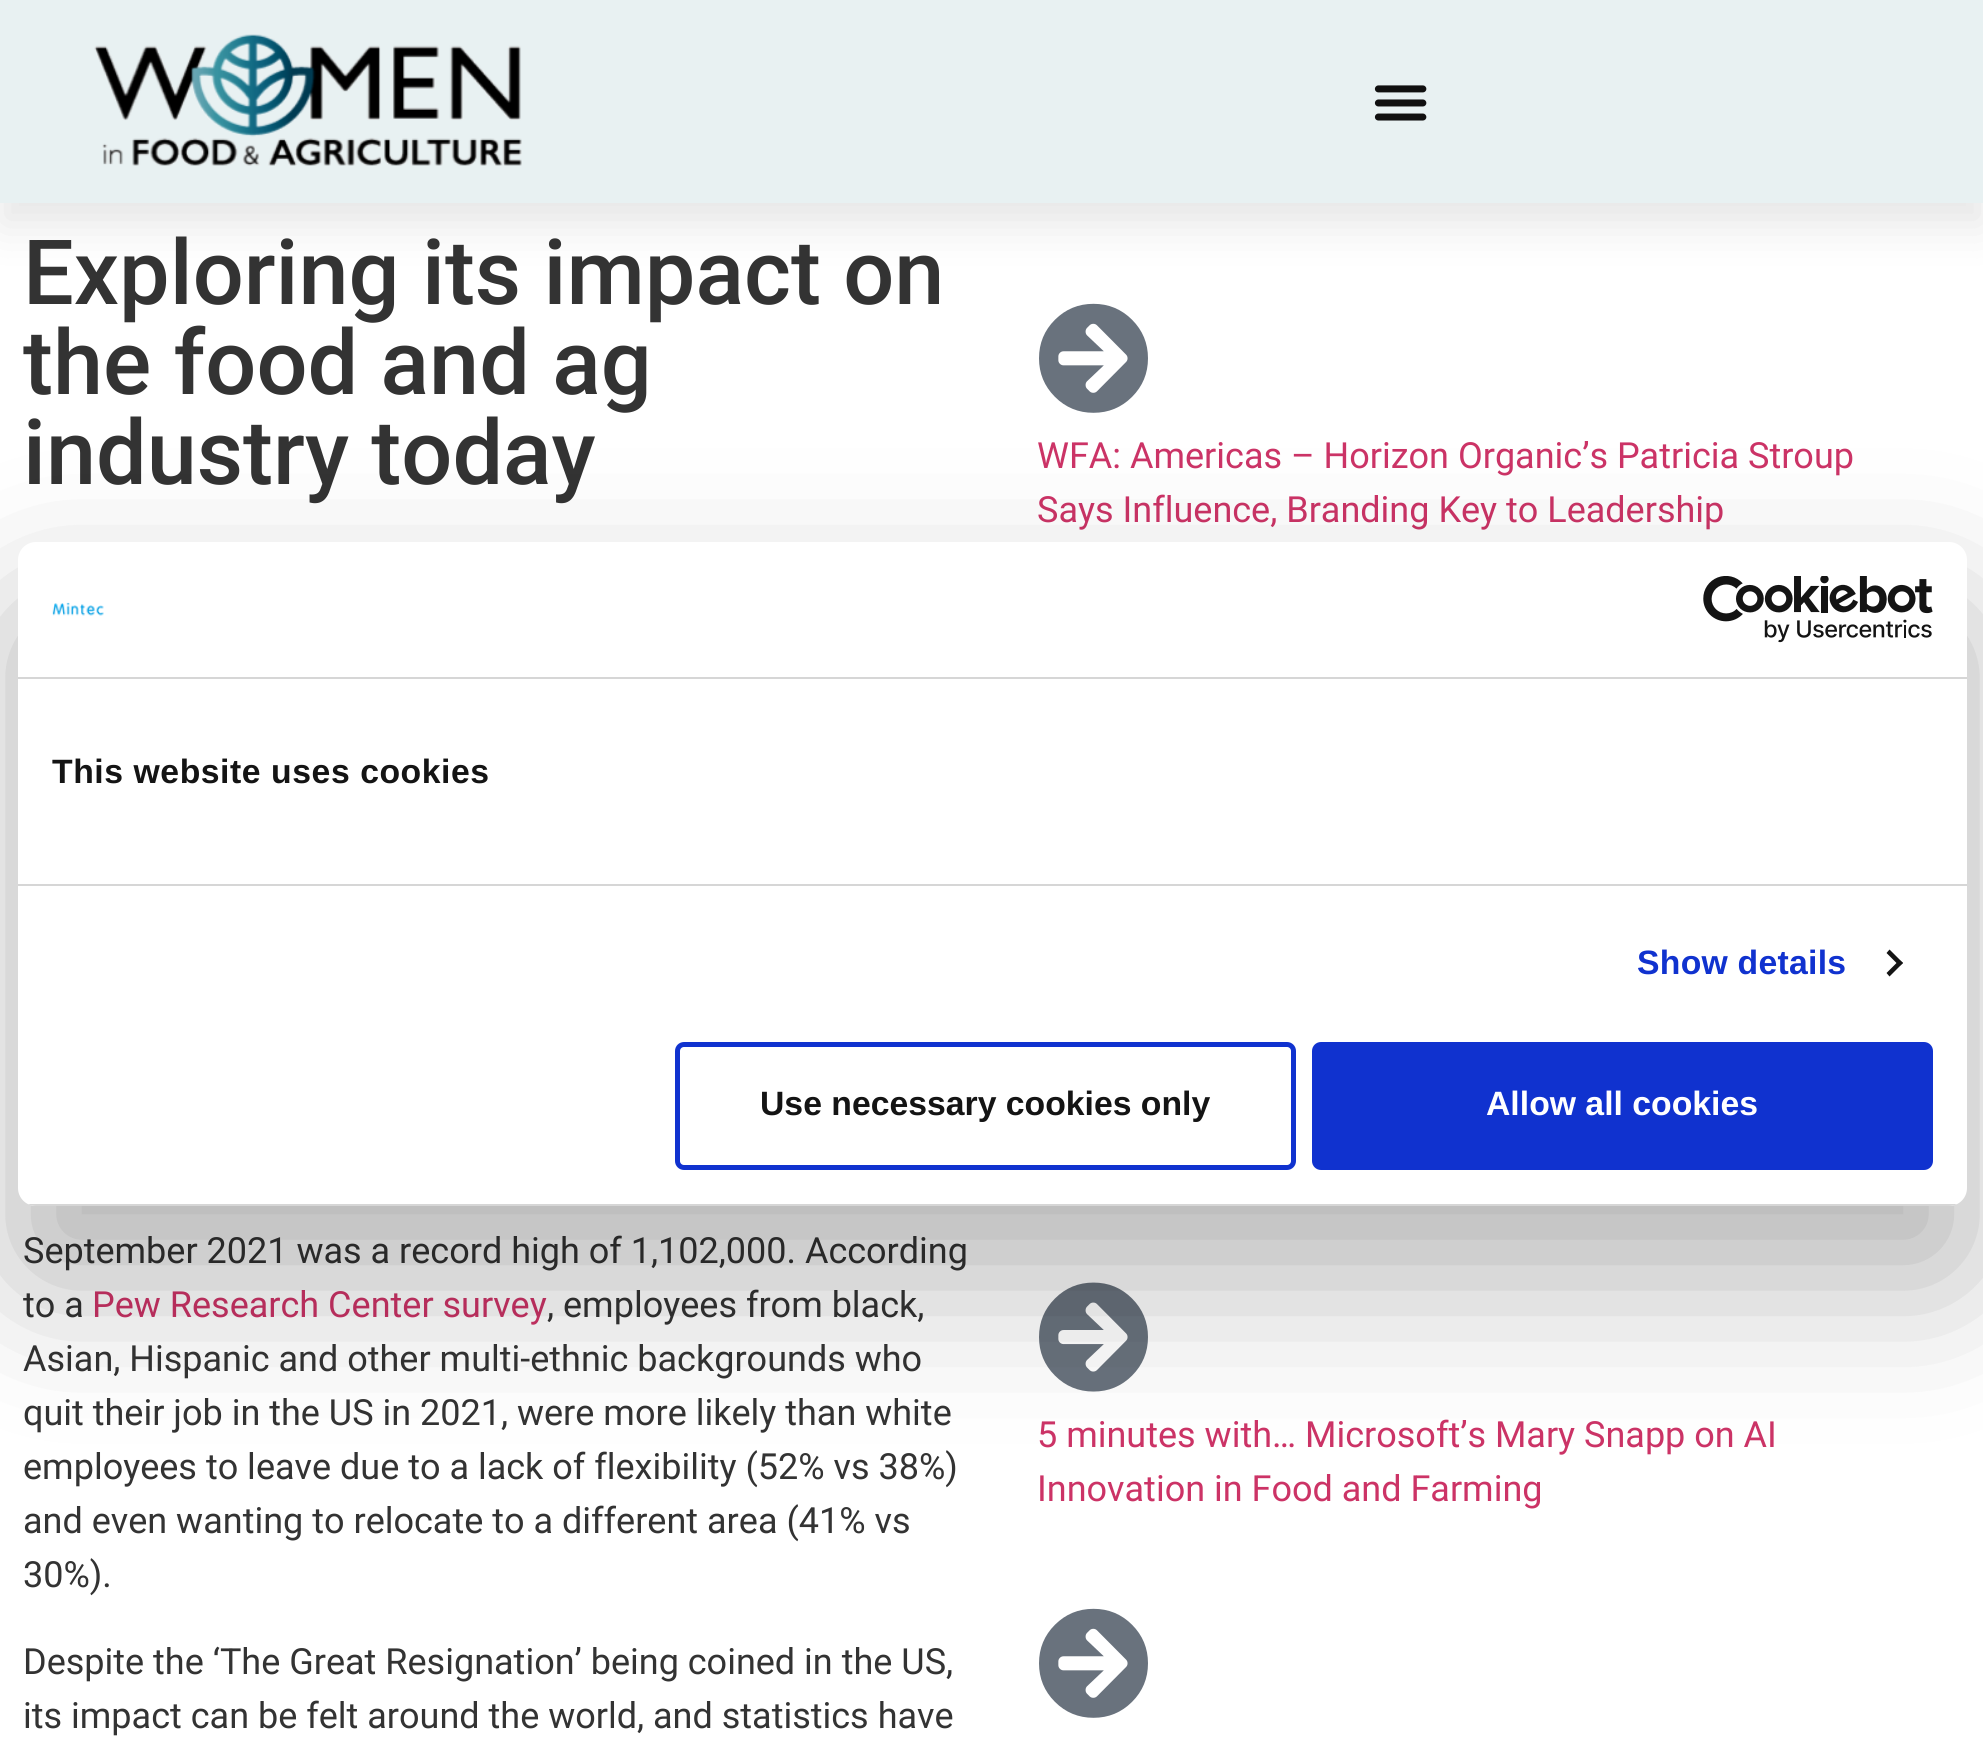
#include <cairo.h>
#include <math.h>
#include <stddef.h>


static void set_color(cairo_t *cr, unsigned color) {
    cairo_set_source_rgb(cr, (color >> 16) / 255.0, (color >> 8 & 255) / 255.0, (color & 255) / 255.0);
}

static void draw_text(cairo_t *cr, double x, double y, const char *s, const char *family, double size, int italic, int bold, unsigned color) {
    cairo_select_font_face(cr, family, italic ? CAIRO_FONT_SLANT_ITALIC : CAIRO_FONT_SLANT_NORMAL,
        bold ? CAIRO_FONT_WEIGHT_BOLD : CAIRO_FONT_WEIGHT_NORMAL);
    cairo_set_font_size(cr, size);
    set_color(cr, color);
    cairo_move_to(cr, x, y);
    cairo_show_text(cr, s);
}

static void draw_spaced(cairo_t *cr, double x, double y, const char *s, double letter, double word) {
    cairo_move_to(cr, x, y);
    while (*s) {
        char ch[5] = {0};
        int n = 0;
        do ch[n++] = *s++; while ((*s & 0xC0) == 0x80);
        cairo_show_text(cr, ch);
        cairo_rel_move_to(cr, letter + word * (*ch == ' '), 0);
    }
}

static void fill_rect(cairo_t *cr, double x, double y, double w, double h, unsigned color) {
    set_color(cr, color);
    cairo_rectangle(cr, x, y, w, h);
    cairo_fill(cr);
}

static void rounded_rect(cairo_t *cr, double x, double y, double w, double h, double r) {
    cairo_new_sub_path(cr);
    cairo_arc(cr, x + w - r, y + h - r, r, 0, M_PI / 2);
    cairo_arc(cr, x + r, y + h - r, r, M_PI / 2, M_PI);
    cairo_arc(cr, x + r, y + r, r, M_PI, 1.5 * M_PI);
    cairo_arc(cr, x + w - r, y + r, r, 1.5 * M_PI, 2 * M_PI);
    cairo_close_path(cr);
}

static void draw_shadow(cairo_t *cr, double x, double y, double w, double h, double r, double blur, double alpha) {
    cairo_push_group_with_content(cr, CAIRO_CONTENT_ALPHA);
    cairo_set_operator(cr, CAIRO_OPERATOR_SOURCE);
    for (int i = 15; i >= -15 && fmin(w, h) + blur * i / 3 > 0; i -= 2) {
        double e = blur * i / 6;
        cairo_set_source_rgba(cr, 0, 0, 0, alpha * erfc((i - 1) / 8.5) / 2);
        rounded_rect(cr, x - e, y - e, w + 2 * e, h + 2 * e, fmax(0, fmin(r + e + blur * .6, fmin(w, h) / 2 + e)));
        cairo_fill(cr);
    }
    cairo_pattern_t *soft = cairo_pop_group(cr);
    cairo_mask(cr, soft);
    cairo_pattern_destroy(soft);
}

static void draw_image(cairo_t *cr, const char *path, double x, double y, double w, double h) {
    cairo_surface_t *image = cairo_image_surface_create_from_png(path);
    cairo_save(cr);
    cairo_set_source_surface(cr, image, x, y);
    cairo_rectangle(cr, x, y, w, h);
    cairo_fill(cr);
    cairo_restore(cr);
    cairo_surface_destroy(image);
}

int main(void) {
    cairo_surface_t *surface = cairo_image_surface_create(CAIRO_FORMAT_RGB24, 1983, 1743);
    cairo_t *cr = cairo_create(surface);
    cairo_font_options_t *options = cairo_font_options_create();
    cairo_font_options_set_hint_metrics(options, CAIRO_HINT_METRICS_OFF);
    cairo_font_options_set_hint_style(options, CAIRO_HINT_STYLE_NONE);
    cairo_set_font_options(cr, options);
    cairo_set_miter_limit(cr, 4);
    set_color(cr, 0xFFFFFF);
    cairo_paint(cr);
    set_color(cr, 0x000000);
    draw_shadow(cr, 0, 23, 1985, 202, 0, 22.5, 0.1);
    fill_rect(cr, 0, 0, 1983, 203, 0xE8F1F2);
    draw_image(cr, "assets/img1.png", 94, 34, 428, 132);
    draw_image(cr, "assets/img2.png", 1374, 85, 53, 36);
    draw_text(cr, 23, 304, "Exploring its impact on", "Roboto Medium", 90, 0, 0, 0x333333);
    draw_text(cr, 23, 394, "the food and ag", "Roboto Medium", 90, 0, 0, 0x333333);
    draw_text(cr, 23, 484, "industry today", "Roboto Medium", 90, 0, 0, 0x333333);
    draw_text(cr, 23, 1263, "September 2021 was a record high of 1,102,000. According", "Roboto", 36, 0, 0, 0x333333);
    draw_text(cr, 23, 1317, "to a", "Roboto", 36, 0, 0, 0x333333);
    draw_text(cr, 92, 1317, "Pew Research Center survey", "Roboto", 36, 0, 0, 0xCC3366);
    draw_text(cr, 547, 1317, ", employees from black,", "Roboto", 36, 0, 0, 0x333333);
    draw_text(cr, 23, 1371, "Asian, Hispanic and other multi-ethnic backgrounds who", "Roboto", 36, 0, 0, 0x333333);
    draw_text(cr, 23, 1425, "quit their job in the US in 2021, were more likely than white", "Roboto", 36, 0, 0, 0x333333);
    draw_text(cr, 23, 1479, "employees to leave due to a lack of flexibility (52% vs 38%)", "Roboto", 36, 0, 0, 0x333333);
    draw_text(cr, 23, 1533, "and even wanting to relocate to a different area (41% vs", "Roboto", 36, 0, 0, 0x333333);
    draw_text(cr, 23, 1587, "30%).", "Roboto", 36, 0, 0, 0x333333);
    draw_text(cr, 23, 1674, "Despite the ‘The Great Resignation’ being coined in the US,", "Roboto", 36, 0, 0, 0x333333);
    draw_text(cr, 23, 1728, "its impact can be felt around the world, and statistics have", "Roboto", 36, 0, 0, 0x333333);
    draw_image(cr, "assets/img3.png", 1039, 303, 109, 110);
    draw_text(cr, 1037, 468, "WFA: Americas – Horizon Organic’s Patricia Stroup", "Roboto", 36, 0, 0, 0xCC3366);
    draw_text(cr, 1037, 522, "Says Influence, Branding Key to Leadership", "Roboto", 36, 0, 0, 0xCC3366);
    draw_image(cr, "assets/img4.png", 1039, 1282, 109, 110);
    draw_text(cr, 1037, 1447, "5 minutes with… Microsoft’s Mary Snapp on AI", "Roboto", 36, 0, 0, 0xCC3366);
    draw_text(cr, 1037, 1501, "Innovation in Food and Farming", "Roboto", 36, 0, 0, 0xCC3366);
    draw_image(cr, "assets/img3.png", 1039, 1608, 109, 110);
    set_color(cr, 0x000000);
    draw_shadow(cr, 18, 614, 1949, 664, 18, 76.5, 0.3);
    set_color(cr, 0xFFFFFF);
    rounded_rect(cr, 18, 542, 1949, 664, 18);
    cairo_fill(cr);
    fill_rect(cr, 18, 677, 1949, 2, 0xD6D6D6);
    draw_image(cr, "assets/img5.png", 52, 602, 52, 14);
    draw_image(cr, "assets/img6.png", 1703, 576, 230, 67);
    fill_rect(cr, 18, 884, 1949, 2, 0xD6D6D6);
    cairo_select_font_face(cr, "Liberation Sans", CAIRO_FONT_SLANT_NORMAL, CAIRO_FONT_WEIGHT_BOLD);
    cairo_set_font_size(cr, 33.75);
    set_color(cr, 0x141414);
    draw_spaced(cr, 52, 783, "This website uses cookies", 0.55, 0);
    set_color(cr, 0x1032CF);
    draw_spaced(cr, 1637, 974, "Show details", 0.25, 0);
    set_color(cr, 0x141414);
    cairo_new_path(cr);
    cairo_move_to(cr, 1889.5, 949.5);
    cairo_line_to(cr, 1903, 963);
    cairo_line_to(cr, 1899.5, 966);
    cairo_line_to(cr, 1886.5, 953);
    cairo_close_path(cr);
    cairo_fill(cr);
    cairo_new_path(cr);
    cairo_move_to(cr, 1899.5, 960);
    cairo_line_to(cr, 1903, 963);
    cairo_line_to(cr, 1889.5, 976.5);
    cairo_line_to(cr, 1886.5, 973);
    cairo_close_path(cr);
    cairo_fill(cr);
    cairo_save(cr);
    rounded_rect(cr, 18, 542, 1949, 664, 18);
    cairo_clip(cr);
    fill_rect(cr, 28, 1204, 1929, 2, 0xD6D6D6);
    cairo_restore(cr);
    rounded_rect(cr, 677.5, 1044.5, 616, 123, 6.5);
    set_color(cr, 0x1032CF);
    cairo_set_line_width(cr, 5);
    cairo_stroke(cr);
    draw_text(cr, 760, 1115, "Use necessary cookies only", "Liberation Sans", 33.75, 0, 1, 0x141414);
    set_color(cr, 0x1032CF);
    rounded_rect(cr, 1314.5, 1044.5, 616, 123, 6.5);
    cairo_fill_preserve(cr);
    cairo_stroke(cr);
    draw_text(cr, 1486, 1115, "Allow all cookies", "Liberation Sans", 33.75, 0, 1, 0xFFFFFF);
    cairo_surface_write_to_png(surface, "output.png");
    cairo_font_options_destroy(options);
    cairo_destroy(cr);
    cairo_surface_destroy(surface);
    return 0;
}
